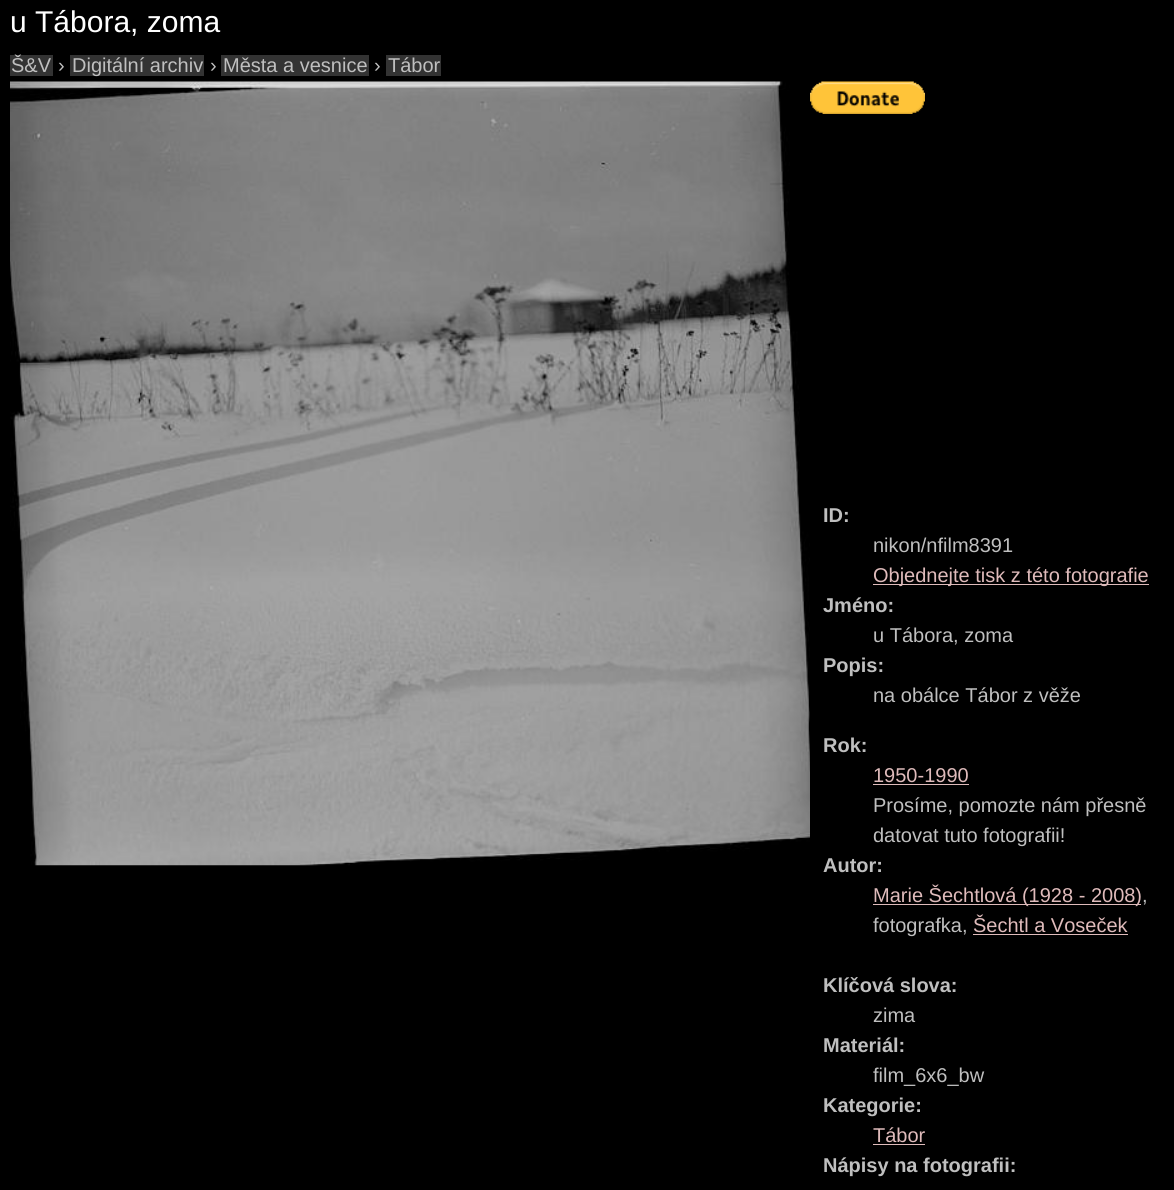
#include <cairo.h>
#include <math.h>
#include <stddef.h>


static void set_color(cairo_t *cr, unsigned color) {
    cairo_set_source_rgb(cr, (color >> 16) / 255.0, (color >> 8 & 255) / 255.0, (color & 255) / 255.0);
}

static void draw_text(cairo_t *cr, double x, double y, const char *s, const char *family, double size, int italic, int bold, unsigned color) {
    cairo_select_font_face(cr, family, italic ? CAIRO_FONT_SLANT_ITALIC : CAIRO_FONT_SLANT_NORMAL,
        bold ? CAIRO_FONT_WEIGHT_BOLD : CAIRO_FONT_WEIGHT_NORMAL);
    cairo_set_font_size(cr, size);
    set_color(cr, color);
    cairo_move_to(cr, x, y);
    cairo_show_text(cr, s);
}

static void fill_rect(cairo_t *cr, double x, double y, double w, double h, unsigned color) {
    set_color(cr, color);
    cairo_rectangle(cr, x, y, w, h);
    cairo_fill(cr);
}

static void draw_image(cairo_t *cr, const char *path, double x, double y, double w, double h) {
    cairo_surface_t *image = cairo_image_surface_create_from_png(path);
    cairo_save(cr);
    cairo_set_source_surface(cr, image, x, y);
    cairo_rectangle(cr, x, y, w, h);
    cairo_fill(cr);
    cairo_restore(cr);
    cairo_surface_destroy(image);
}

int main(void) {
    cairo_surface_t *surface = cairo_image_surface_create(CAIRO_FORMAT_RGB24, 1174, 1190);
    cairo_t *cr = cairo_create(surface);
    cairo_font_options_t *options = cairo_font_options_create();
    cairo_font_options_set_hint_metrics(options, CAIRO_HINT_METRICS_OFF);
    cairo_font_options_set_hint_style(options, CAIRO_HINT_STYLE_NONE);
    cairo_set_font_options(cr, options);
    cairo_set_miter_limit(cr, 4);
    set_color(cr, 0x000000);
    cairo_paint(cr);
    draw_text(cr, 10, 32, "u Tábora, zoma", "Liberation Sans", 30, 0, 0, 0xFFFFFF);
    fill_rect(cr, 10, 55, 43, 21, 0x333333);
    draw_text(cr, 11, 72, "Š&V", "Liberation Sans", 20, 0, 0, 0xBFBFBF);
    draw_text(cr, 58, 72, "›", "Liberation Sans", 20, 0, 0, 0xBFBFBF);
    fill_rect(cr, 70, 55, 134, 21, 0x333333);
    draw_text(cr, 72, 72, "Digitální archiv", "Liberation Sans", 20, 0, 0, 0xBFBFBF);
    draw_text(cr, 210, 72, "›", "Liberation Sans", 20, 0, 0, 0xBFBFBF);
    fill_rect(cr, 221, 55, 148, 21, 0x333333);
    draw_text(cr, 223, 72, "Města a vesnice", "Liberation Sans", 20, 0, 0, 0xBFBFBF);
    draw_text(cr, 374, 72, "›", "Liberation Sans", 20, 0, 0, 0xBFBFBF);
    fill_rect(cr, 386, 55, 55, 21, 0x333333);
    draw_text(cr, 388, 72, "Tábor", "Liberation Sans", 20, 0, 0, 0xBFBFBF);
    draw_image(cr, "assets/img1.png", 10, 81, 800, 785);
    draw_image(cr, "assets/img2.png", 810, 81, 115, 33);
    draw_text(cr, 823, 522, "ID:", "Liberation Sans", 20, 0, 1, 0xBFBFBF);
    draw_text(cr, 873, 552, "nikon/nfilm8391", "Liberation Sans", 20, 0, 0, 0xBFBFBF);
    fill_rect(cr, 873, 584, 276, 1, 0xDFBBBB);
    draw_text(cr, 873, 582, "Objednejte tisk z této fotografie", "Liberation Sans", 20, 0, 0, 0xDFBBBB);
    draw_text(cr, 823, 612, "Jméno:", "Liberation Sans", 20, 0, 1, 0xBFBFBF);
    draw_text(cr, 873, 642, "u Tábora, zoma", "Liberation Sans", 20, 0, 0, 0xBFBFBF);
    draw_text(cr, 823, 672, "Popis:", "Liberation Sans", 20, 0, 1, 0xBFBFBF);
    draw_text(cr, 873, 702, "na obálce Tábor z věže", "Liberation Sans", 20, 0, 0, 0xBFBFBF);
    draw_text(cr, 823, 752, "Rok:", "Liberation Sans", 20, 0, 1, 0xBFBFBF);
    draw_text(cr, 873, 782, "1950-1990", "Liberation Sans", 20, 0, 0, 0xDFBBBB);
    fill_rect(cr, 873, 784, 96, 1, 0xDFBBBB);
    draw_text(cr, 873, 812, "Prosíme, pomozte nám přesně", "Liberation Sans", 20, 0, 0, 0xBFBFBF);
    draw_text(cr, 873, 842, "datovat tuto fotografii!", "Liberation Sans", 20, 0, 0, 0xBFBFBF);
    draw_text(cr, 823, 872, "Autor:", "Liberation Sans", 20, 0, 1, 0xBFBFBF);
    fill_rect(cr, 873, 904, 268, 1, 0xDFBBBB);
    draw_text(cr, 873, 902, "Marie Šechtlová (1928 - 2008)", "Liberation Sans", 20, 0, 0, 0xDFBBBB);
    draw_text(cr, 1142, 902, ",", "Liberation Sans", 20, 0, 0, 0xBFBFBF);
    draw_text(cr, 873, 932, "fotografka,", "Liberation Sans", 20, 0, 0, 0xBFBFBF);
    draw_text(cr, 973, 932, "Šechtl a Voseček", "Liberation Sans", 20, 0, 0, 0xDFBBBB);
    fill_rect(cr, 973, 934, 155, 1, 0xDFBBBB);
    draw_text(cr, 823, 992, "Klíčová slova:", "Liberation Sans", 20, 0, 1, 0xBFBFBF);
    draw_text(cr, 873, 1022, "zima", "Liberation Sans", 20, 0, 0, 0xBFBFBF);
    draw_text(cr, 823, 1052, "Materiál:", "Liberation Sans", 20, 0, 1, 0xBFBFBF);
    draw_text(cr, 873, 1082, "film_6x6_bw", "Liberation Sans", 20, 0, 0, 0xBFBFBF);
    draw_text(cr, 823, 1112, "Kategorie:", "Liberation Sans", 20, 0, 1, 0xBFBFBF);
    draw_text(cr, 873, 1142, "Tábor", "Liberation Sans", 20, 0, 0, 0xDFBBBB);
    fill_rect(cr, 873, 1144, 52, 1, 0xDFBBBB);
    draw_text(cr, 823, 1172, "Nápisy na fotografii:", "Liberation Sans", 20, 0, 1, 0xBFBFBF);
    cairo_surface_write_to_png(surface, "output.png");
    cairo_font_options_destroy(options);
    cairo_destroy(cr);
    cairo_surface_destroy(surface);
    return 0;
}
